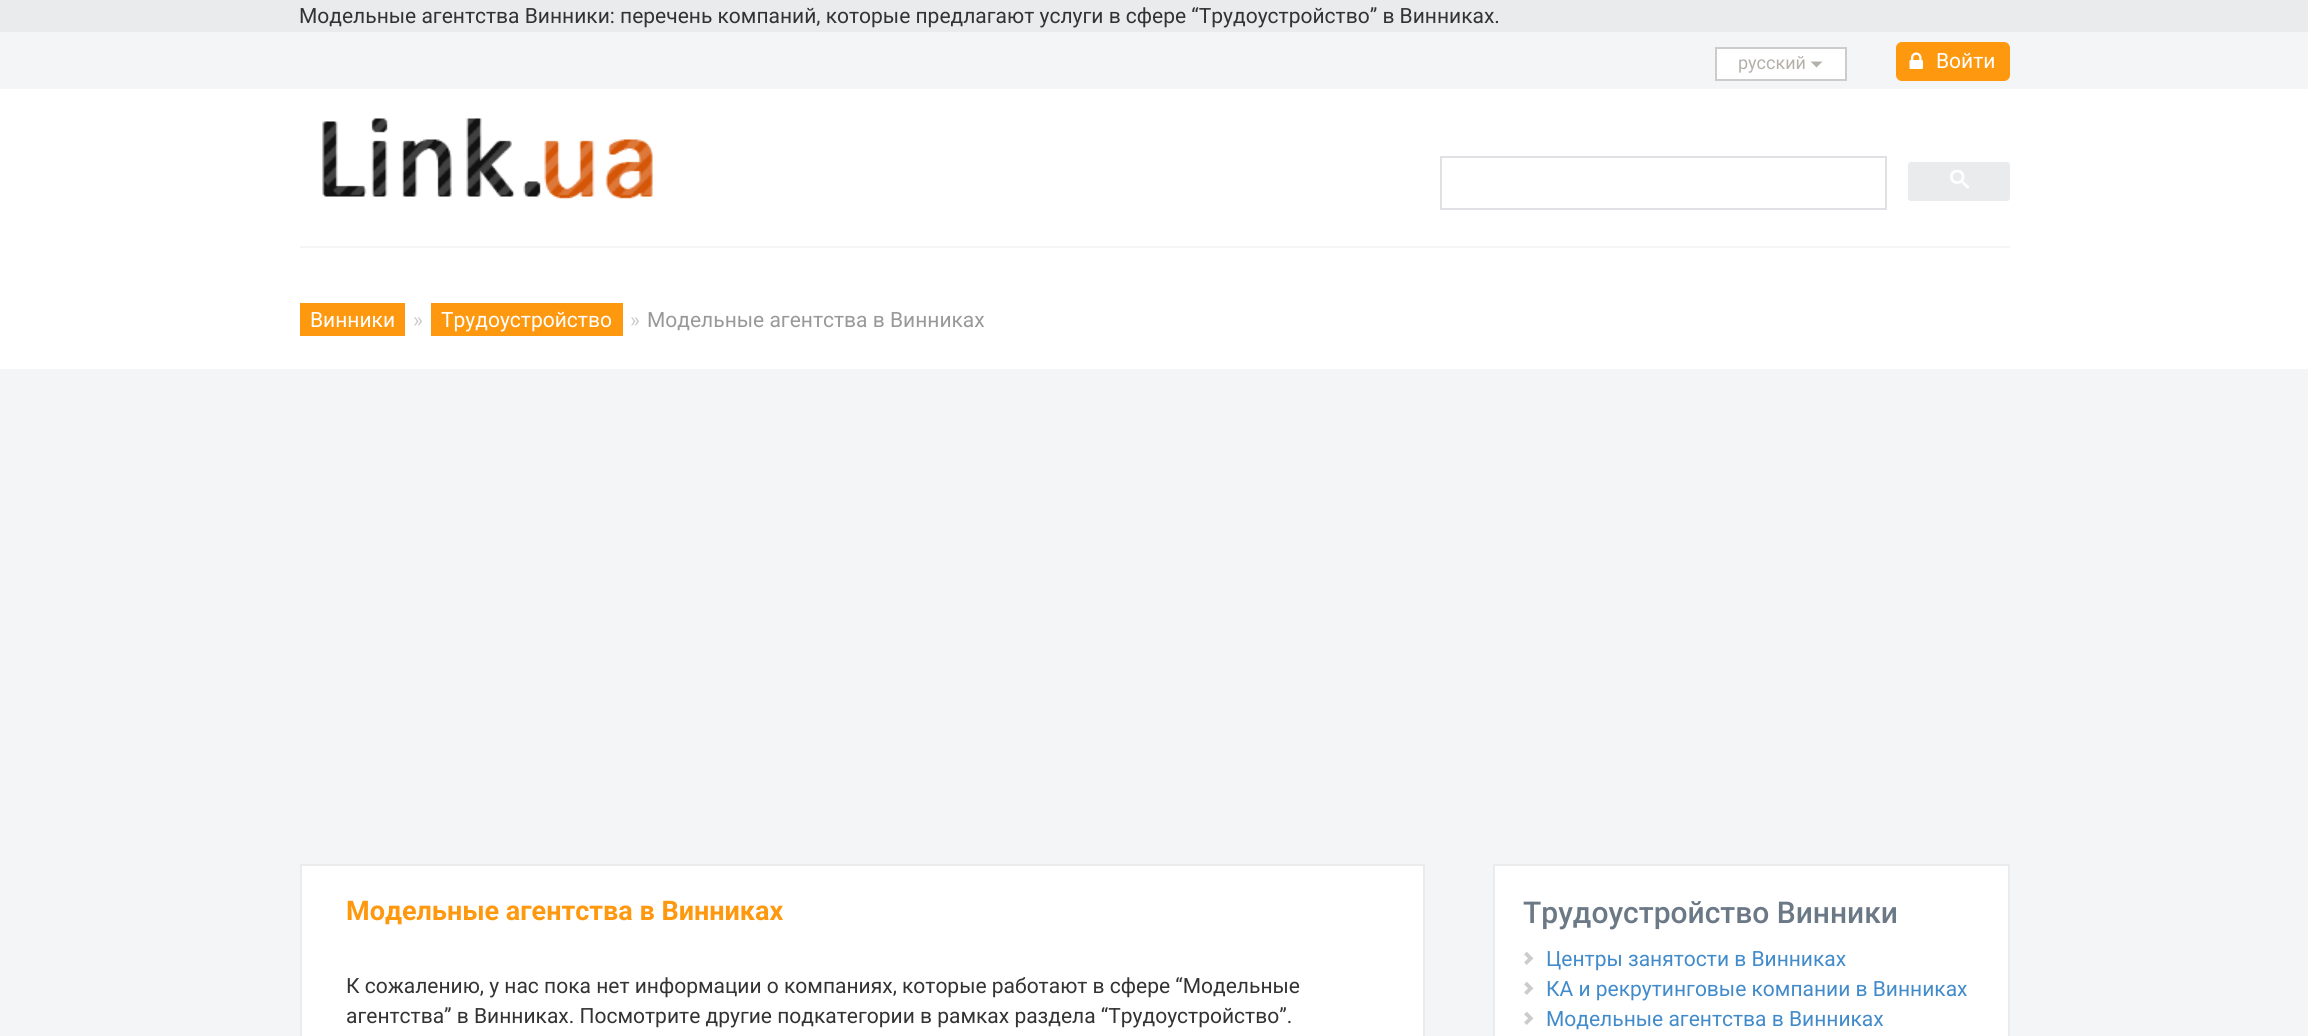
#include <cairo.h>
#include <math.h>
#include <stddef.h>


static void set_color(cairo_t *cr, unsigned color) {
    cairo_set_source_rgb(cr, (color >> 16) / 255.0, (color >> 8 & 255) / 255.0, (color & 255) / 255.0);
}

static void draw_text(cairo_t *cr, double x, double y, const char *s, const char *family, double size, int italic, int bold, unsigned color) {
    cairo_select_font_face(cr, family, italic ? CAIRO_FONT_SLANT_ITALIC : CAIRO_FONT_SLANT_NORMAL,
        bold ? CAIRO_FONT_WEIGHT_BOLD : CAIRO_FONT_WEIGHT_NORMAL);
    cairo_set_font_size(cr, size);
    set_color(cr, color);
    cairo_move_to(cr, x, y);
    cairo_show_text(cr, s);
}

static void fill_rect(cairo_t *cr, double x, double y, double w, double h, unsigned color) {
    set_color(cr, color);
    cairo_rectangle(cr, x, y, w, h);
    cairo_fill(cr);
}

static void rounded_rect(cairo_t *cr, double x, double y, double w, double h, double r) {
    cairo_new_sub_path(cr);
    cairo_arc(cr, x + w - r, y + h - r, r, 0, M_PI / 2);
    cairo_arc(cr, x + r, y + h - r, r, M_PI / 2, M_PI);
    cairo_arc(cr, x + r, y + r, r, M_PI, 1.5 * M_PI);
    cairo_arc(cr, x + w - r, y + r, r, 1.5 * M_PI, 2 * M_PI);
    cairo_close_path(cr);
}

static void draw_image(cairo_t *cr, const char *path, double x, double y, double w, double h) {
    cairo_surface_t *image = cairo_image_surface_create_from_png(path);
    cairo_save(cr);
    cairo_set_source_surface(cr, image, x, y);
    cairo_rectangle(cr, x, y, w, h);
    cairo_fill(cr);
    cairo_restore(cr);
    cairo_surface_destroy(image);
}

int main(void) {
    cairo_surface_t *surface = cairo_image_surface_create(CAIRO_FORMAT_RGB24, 2308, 1036);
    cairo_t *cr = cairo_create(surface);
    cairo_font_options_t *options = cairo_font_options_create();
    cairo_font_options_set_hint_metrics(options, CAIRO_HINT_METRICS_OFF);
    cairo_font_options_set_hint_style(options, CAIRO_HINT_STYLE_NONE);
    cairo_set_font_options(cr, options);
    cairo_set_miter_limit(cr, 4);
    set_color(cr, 0xFFFFFF);
    cairo_paint(cr);
    fill_rect(cr, 0, 0, 2308, 32, 0xE9EBED);
    draw_text(cr, 299, 23, "Модельные агентства Винники: перечень компаний, которые предлагают услуги в сфере “Трудоустройство” в Винниках.", "Roboto", 21, 0, 0, 0x333333);
    fill_rect(cr, 0, 32, 2308, 57, 0xF4F5F6);
    set_color(cr, 0xFFFFFF);
    cairo_rectangle(cr, 1716, 48, 130, 32);
    cairo_fill_preserve(cr);
    set_color(cr, 0xCCCCCC);
    cairo_stroke(cr);
    draw_text(cr, 1738, 69, "русcкий", "Roboto", 18, 0, 0, 0xB4B1AB);
    cairo_new_path(cr);
    cairo_move_to(cr, 1810.5, 61.5);
    cairo_line_to(cr, 1822.5, 61.5);
    cairo_line_to(cr, 1816.5, 67.5);
    cairo_close_path(cr);
    cairo_fill(cr);
    set_color(cr, 0xFE980F);
    rounded_rect(cr, 1897, 43, 112, 37, 5);
    cairo_fill_preserve(cr);
    cairo_stroke(cr);
    draw_image(cr, "assets/img1.png", 1909, 52, 14, 17);
    draw_text(cr, 1936, 68, "Войти", "Roboto", 21, 0, 0, 0xFFFFFF);
    fill_rect(cr, 300, 246, 1710, 2, 0xF5F5F5);
    draw_image(cr, "assets/img2.png", 322, 118, 331, 81);
    cairo_rectangle(cr, 1441, 157, 445, 52);
    set_color(cr, 0xDFE1E5);
    cairo_stroke(cr);
    set_color(cr, 0xE9EBED);
    rounded_rect(cr, 1909, 163, 100, 37, 2);
    cairo_fill_preserve(cr);
    cairo_stroke(cr);
    draw_image(cr, "assets/img3.png", 1950, 170, 19, 19);
    fill_rect(cr, 300, 303, 105, 33, 0xFE980F);
    draw_text(cr, 310, 327, "Винники", "Roboto", 21, 0, 0, 0xFFFFFF);
    draw_text(cr, 413, 327, "»", "Roboto", 21, 0, 0, 0xCCCCCC);
    fill_rect(cr, 431, 303, 192, 33, 0xFE980F);
    draw_text(cr, 441, 327, "Трудоустройство", "Roboto", 21, 0, 0, 0xFFFFFF);
    draw_text(cr, 630, 327, "»", "Roboto", 21, 0, 0, 0xCCCCCC);
    draw_text(cr, 647, 327, "Модельные агентства в Винниках", "Roboto", 21, 0, 0, 0x999999);
    fill_rect(cr, 0, 369, 2308, 667, 0xF4F5F6);
    set_color(cr, 0xFFFFFF);
    cairo_rectangle(cr, 301, 865, 1123, 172);
    cairo_fill_preserve(cr);
    set_color(cr, 0xE9EBED);
    cairo_stroke(cr);
    draw_text(cr, 346, 920, "Модельные агентства в Винниках", "Roboto", 27, 0, 1, 0xFE980F);
    draw_text(cr, 346, 993, "К сожалению, у нас пока нет информации о компаниях, которые работают в сфере “Модельные", "Roboto", 21, 0, 0, 0x333333);
    draw_text(cr, 346, 1023, "агентства” в Винниках. Посмотрите другие подкатегории в рамках раздела “Трудоустройство”.", "Roboto", 21, 0, 0, 0x333333);
    set_color(cr, 0xFFFFFF);
    cairo_rectangle(cr, 1494, 865, 515, 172);
    cairo_fill_preserve(cr);
    set_color(cr, 0xE9EBED);
    cairo_stroke(cr);
    draw_text(cr, 1523, 923, "Трудоустройство Винники", "Roboto Medium", 30, 0, 0, 0x6B7886);
    draw_image(cr, "assets/img4.png", 1524, 951, 10, 14);
    draw_text(cr, 1546, 966, "Центры занятости в Винниках", "Roboto", 21, 0, 0, 0x428BCA);
    draw_image(cr, "assets/img4.png", 1524, 981, 10, 14);
    draw_text(cr, 1546, 996, "КА и рекрутинговые компании в Винниках", "Roboto", 21, 0, 0, 0x428BCA);
    draw_image(cr, "assets/img4.png", 1524, 1011, 10, 14);
    draw_text(cr, 1546, 1026, "Модельные агентства в Винниках", "Roboto", 21, 0, 0, 0x428BCA);
    cairo_surface_write_to_png(surface, "output.png");
    cairo_font_options_destroy(options);
    cairo_destroy(cr);
    cairo_surface_destroy(surface);
    return 0;
}
